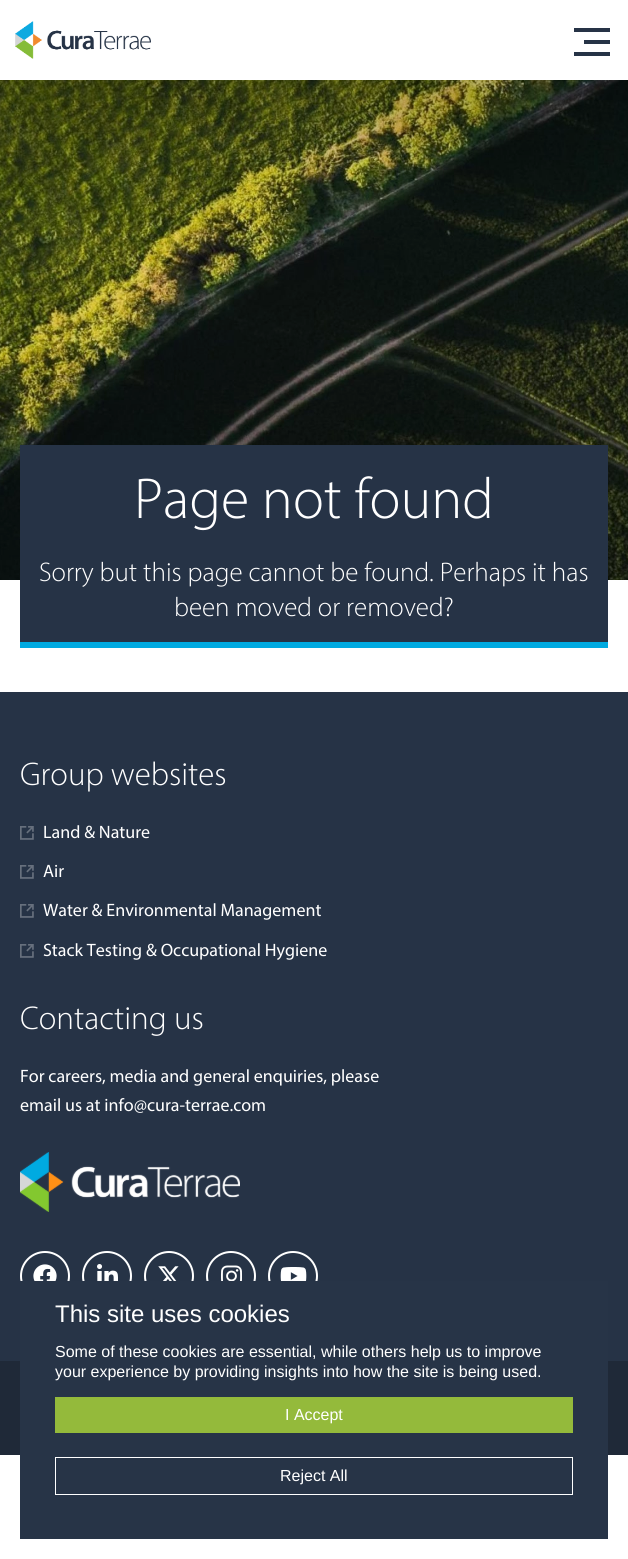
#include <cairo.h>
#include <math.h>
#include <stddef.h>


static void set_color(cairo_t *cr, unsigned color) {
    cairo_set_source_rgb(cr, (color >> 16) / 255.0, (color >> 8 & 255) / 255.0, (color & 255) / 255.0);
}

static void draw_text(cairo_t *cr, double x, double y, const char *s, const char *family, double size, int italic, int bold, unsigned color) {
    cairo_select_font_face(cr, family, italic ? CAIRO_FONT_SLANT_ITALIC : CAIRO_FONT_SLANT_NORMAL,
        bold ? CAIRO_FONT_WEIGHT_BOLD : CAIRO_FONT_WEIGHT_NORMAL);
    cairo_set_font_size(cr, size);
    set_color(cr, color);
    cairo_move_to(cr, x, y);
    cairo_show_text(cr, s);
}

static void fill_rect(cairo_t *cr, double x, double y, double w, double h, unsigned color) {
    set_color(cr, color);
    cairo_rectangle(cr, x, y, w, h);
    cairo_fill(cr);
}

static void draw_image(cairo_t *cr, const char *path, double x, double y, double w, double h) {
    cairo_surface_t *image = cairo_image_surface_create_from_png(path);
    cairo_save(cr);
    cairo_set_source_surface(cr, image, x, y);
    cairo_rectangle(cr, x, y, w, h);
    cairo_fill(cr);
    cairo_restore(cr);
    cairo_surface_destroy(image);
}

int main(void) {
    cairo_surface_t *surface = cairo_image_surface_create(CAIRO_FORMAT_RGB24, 628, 1559);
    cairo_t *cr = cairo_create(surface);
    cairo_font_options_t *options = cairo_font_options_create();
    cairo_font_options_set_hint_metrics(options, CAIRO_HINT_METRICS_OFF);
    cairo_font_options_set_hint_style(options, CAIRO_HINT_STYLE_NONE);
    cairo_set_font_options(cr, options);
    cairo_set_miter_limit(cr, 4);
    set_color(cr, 0xFFFFFF);
    cairo_paint(cr);
    draw_image(cr, "assets/img1.png", 15, 21, 136, 38);
    fill_rect(cr, 574, 28, 36, 4, 0x263346);
    fill_rect(cr, 584, 40, 26, 4, 0x263346);
    fill_rect(cr, 574, 52, 36, 4, 0x263346);
    draw_image(cr, "assets/img2.png", 0, 80, 628, 500);
    fill_rect(cr, 20, 445, 588, 197, 0x263346);
    fill_rect(cr, 20, 642, 588, 6, 0x00AAE1);
    draw_text(cr, 134, 518, "Page not found", "Myriad Light", 58, 0, 0, 0xFFFFFF);
    draw_text(cr, 39, 581, "Sorry but this page cannot be found. Perhaps it has", "Myriad Light", 27, 0, 0, 0xFFFFFF);
    draw_text(cr, 174, 616, "been moved or removed?", "Myriad Light", 27, 0, 0, 0xFFFFFF);
    fill_rect(cr, 0, 692, 628, 669, 0x263346);
    draw_text(cr, 20, 785, "Group websites", "Myriad Light", 33, 0, 0, 0xFFFFFF);
    draw_image(cr, "assets/img3.png", 20, 826, 14, 14);
    draw_text(cr, 43, 838, "Land & Nature", "Myriad", 18, 0, 0, 0xFFFFFF);
    draw_image(cr, "assets/img3.png", 20, 865, 14, 14);
    draw_text(cr, 43, 877, "Air", "Myriad", 18, 0, 0, 0xFFFFFF);
    draw_image(cr, "assets/img3.png", 20, 904, 14, 14);
    draw_text(cr, 43, 916, "Water & Environmental Management", "Myriad", 18, 0, 0, 0xFFFFFF);
    draw_image(cr, "assets/img3.png", 20, 944, 14, 14);
    draw_text(cr, 43, 956, "Stack Testing & Occupational Hygiene", "Myriad", 18, 0, 0, 0xFFFFFF);
    draw_text(cr, 20, 1029, "Contacting us", "Myriad Light", 33, 0, 0, 0xFFFFFF);
    draw_text(cr, 20, 1082, "For careers, media and general enquiries, please", "Myriad", 18, 0, 0, 0xFFFFFF);
    draw_text(cr, 20, 1111, "email us at info@cura-terrae.com", "Myriad", 18, 0, 0, 0xFFFFFF);
    draw_image(cr, "assets/img4.png", 20, 1152, 220, 60);
    cairo_arc(cr, 45, 1276, 24, 0, 2 * M_PI);
    cairo_stroke(cr);
    draw_image(cr, "assets/img5.png", 33, 1264, 24, 17);
    cairo_arc(cr, 107, 1276, 24, 0, 2 * M_PI);
    cairo_stroke(cr);
    draw_image(cr, "assets/img6.png", 97, 1264, 21, 17);
    cairo_arc(cr, 169, 1276, 24, 0, 2 * M_PI);
    cairo_stroke(cr);
    draw_image(cr, "assets/img7.png", 158, 1266, 21, 15);
    cairo_arc(cr, 231, 1276, 24, 0, 2 * M_PI);
    cairo_stroke(cr);
    draw_image(cr, "assets/img8.png", 221, 1265, 21, 16);
    cairo_arc(cr, 293, 1276, 24, 0, 2 * M_PI);
    cairo_stroke(cr);
    draw_image(cr, "assets/img9.png", 280, 1267, 27, 14);
    fill_rect(cr, 0, 1361, 628, 94, 0x1F2938);
    fill_rect(cr, 20, 1281, 588, 258, 0x273447);
    draw_text(cr, 55, 1322, "This site uses cookies", "Liberation Sans", 24, 0, 0, 0xFFFFFF);
    draw_text(cr, 55, 1357, "Some of these cookies are essential, while others help us to improve", "Liberation Sans", 16, 0, 0, 0xFFFFFF);
    draw_text(cr, 55, 1377, "your experience by providing insights into how the site is being used.", "Liberation Sans", 16, 0, 0, 0xFFFFFF);
    fill_rect(cr, 55, 1397, 518, 36, 0x94BA3B);
    draw_text(cr, 285, 1420, "I Accept", "Liberation Sans", 16, 0, 0, 0xFFFFFF);
    cairo_rectangle(cr, 55.5, 1457.5, 517, 37);
    cairo_set_line_width(cr, 1);
    cairo_stroke(cr);
    draw_text(cr, 280, 1481, "Reject All", "Liberation Sans", 16, 0, 0, 0xFFFFFF);
    cairo_surface_write_to_png(surface, "output.png");
    cairo_font_options_destroy(options);
    cairo_destroy(cr);
    cairo_surface_destroy(surface);
    return 0;
}
